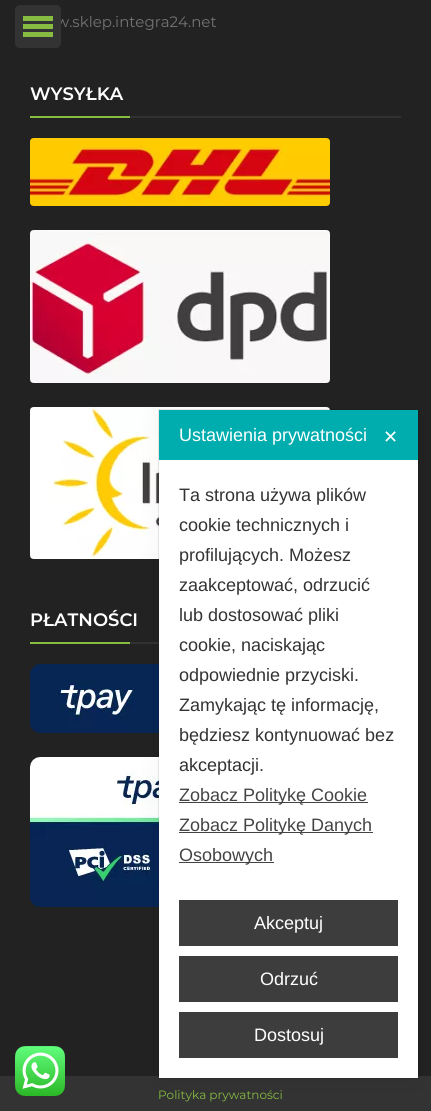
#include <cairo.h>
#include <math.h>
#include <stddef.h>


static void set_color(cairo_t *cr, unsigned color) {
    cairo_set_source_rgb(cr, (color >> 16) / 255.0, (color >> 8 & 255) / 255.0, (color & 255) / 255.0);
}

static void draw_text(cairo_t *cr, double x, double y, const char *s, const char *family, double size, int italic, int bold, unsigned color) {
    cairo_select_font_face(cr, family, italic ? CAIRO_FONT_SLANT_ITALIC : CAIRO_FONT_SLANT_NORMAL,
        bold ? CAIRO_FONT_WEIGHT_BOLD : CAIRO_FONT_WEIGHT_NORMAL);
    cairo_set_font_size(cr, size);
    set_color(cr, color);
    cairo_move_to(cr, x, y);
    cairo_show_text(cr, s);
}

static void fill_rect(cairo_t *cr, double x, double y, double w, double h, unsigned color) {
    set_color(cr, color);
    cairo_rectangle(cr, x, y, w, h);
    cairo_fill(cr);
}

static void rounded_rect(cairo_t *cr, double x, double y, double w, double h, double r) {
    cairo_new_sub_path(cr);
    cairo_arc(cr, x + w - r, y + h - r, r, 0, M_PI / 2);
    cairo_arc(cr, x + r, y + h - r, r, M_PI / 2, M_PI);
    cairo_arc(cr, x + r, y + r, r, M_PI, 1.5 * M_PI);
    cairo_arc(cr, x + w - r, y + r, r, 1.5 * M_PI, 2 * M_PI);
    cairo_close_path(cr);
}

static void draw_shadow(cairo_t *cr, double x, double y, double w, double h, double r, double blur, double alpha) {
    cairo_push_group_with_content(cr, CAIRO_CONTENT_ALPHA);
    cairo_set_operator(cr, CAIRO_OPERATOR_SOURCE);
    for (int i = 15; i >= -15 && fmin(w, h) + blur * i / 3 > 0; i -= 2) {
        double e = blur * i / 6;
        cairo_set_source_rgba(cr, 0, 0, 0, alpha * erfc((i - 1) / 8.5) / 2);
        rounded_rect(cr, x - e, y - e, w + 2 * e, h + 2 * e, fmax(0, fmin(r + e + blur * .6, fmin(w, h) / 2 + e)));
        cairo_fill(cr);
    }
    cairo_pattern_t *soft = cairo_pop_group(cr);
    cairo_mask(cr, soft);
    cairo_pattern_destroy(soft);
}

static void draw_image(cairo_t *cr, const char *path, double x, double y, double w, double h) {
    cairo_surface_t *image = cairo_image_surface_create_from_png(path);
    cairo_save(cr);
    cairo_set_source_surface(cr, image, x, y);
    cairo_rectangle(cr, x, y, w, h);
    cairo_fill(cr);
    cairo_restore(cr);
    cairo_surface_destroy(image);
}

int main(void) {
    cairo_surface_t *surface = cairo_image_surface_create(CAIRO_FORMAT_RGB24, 431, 1111);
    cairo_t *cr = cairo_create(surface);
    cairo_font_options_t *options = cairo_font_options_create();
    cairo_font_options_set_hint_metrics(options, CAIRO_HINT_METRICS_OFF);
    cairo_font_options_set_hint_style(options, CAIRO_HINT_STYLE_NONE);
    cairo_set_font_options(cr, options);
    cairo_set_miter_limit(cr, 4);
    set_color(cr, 0x222222);
    cairo_paint(cr);
    draw_text(cr, 56, 27, "w.sklep.integra24.net", "Montserrat", 15, 0, 0, 0x737373);
    set_color(cr, 0x333333);
    rounded_rect(cr, 15, 5, 46, 43, 5);
    cairo_fill(cr);
    fill_rect(cr, 23, 16, 30, 5, 0x86BC42);
    fill_rect(cr, 23, 24, 30, 5, 0x86BC42);
    fill_rect(cr, 23, 32, 30, 5, 0x86BC42);
    fill_rect(cr, 130, 116, 271, 2, 0x313131);
    draw_text(cr, 30, 100, "WYSYŁKA", "Montserrat SemiBold", 18, 0, 0, 0xFFFFFF);
    fill_rect(cr, 30, 116, 100, 2, 0x86BC42);
    draw_image(cr, "assets/img1.png", 30, 138, 300, 68);
    draw_image(cr, "assets/img2.png", 30, 230, 300, 153);
    draw_image(cr, "assets/img3.png", 30, 407, 300, 152);
    fill_rect(cr, 130, 642, 29, 2, 0x313131);
    draw_text(cr, 30, 626, "PŁATNOŚCI", "Montserrat SemiBold", 18, 0, 0, 0xFFFFFF);
    fill_rect(cr, 30, 642, 100, 2, 0x86BC42);
    draw_image(cr, "assets/img4.png", 30, 664, 129, 69);
    draw_image(cr, "assets/img5.png", 30, 757, 129, 150);
    fill_rect(cr, 0, 1076, 431, 35, 0x333333);
    draw_text(cr, 158, 1099, "Polityka prywatności", "Montserrat", 12, 0, 0, 0x86BC42);
    cairo_rectangle(cr, 158.5, 409.5, 260, 669);
    cairo_set_source_rgba(cr, 0, 0, 0, 0.08);
    cairo_set_line_width(cr, 1);
    cairo_stroke(cr);
    set_color(cr, 0x000000);
    draw_shadow(cr, 159, 416, 259, 668, 0, 12, 0.05);
    fill_rect(cr, 159, 460, 259, 618, 0xFFFFFF);
    fill_rect(cr, 159, 410, 259, 50, 0x00ADAE);
    draw_text(cr, 179, 441, "Ustawienia prywatności", "Liberation Sans", 18, 0, 0, 0xFFFFFF);
    draw_text(cr, 383, 443, "✕", "DejaVu Sans", 18, 0, 0, 0xFFFFFF);
    draw_text(cr, 179, 501, "Ta strona używa plików", "Liberation Sans", 18, 0, 0, 0x333333);
    draw_text(cr, 179, 531, "cookie technicznych i", "Liberation Sans", 18, 0, 0, 0x333333);
    draw_text(cr, 179, 561, "profilujących. Możesz", "Liberation Sans", 18, 0, 0, 0x333333);
    draw_text(cr, 179, 591, "zaakceptować, odrzucić", "Liberation Sans", 18, 0, 0, 0x333333);
    draw_text(cr, 179, 621, "lub dostosować pliki", "Liberation Sans", 18, 0, 0, 0x333333);
    draw_text(cr, 179, 651, "cookie, naciskając", "Liberation Sans", 18, 0, 0, 0x333333);
    draw_text(cr, 179, 681, "odpowiednie przyciski.", "Liberation Sans", 18, 0, 0, 0x333333);
    draw_text(cr, 179, 711, "Zamykając tę informację,", "Liberation Sans", 18, 0, 0, 0x333333);
    draw_text(cr, 179, 741, "będziesz kontynuować bez", "Liberation Sans", 18, 0, 0, 0x333333);
    draw_text(cr, 179, 771, "akceptacji.", "Liberation Sans", 18, 0, 0, 0x333333);
    fill_rect(cr, 179, 802, 189, 1, 0x444444);
    draw_text(cr, 179, 801, "Zobacz Politykę Cookie", "Liberation Sans", 18, 0, 0, 0x444444);
    fill_rect(cr, 179, 832, 194, 1, 0x444444);
    draw_text(cr, 179, 831, "Zobacz Politykę Danych", "Liberation Sans", 18, 0, 0, 0x444444);
    fill_rect(cr, 179, 862, 95, 1, 0x444444);
    draw_text(cr, 179, 861, "Osobowych", "Liberation Sans", 18, 0, 0, 0x444444);
    fill_rect(cr, 179, 900, 219, 46, 0x3D3D3D);
    draw_text(cr, 254, 929, "Akceptuj", "Liberation Sans", 18, 0, 0, 0xFFFFFF);
    fill_rect(cr, 179, 956, 219, 46, 0x3D3D3D);
    draw_text(cr, 260, 985, "Odrzuć", "Liberation Sans", 18, 0, 0, 0xFFFFFF);
    fill_rect(cr, 179, 1012, 219, 46, 0x3D3D3D);
    draw_text(cr, 254, 1041, "Dostosuj", "Liberation Sans", 18, 0, 0, 0xFFFFFF);
    draw_image(cr, "assets/img6.png", 15, 1046, 50, 50);
    cairo_surface_write_to_png(surface, "output.png");
    cairo_font_options_destroy(options);
    cairo_destroy(cr);
    cairo_surface_destroy(surface);
    return 0;
}
